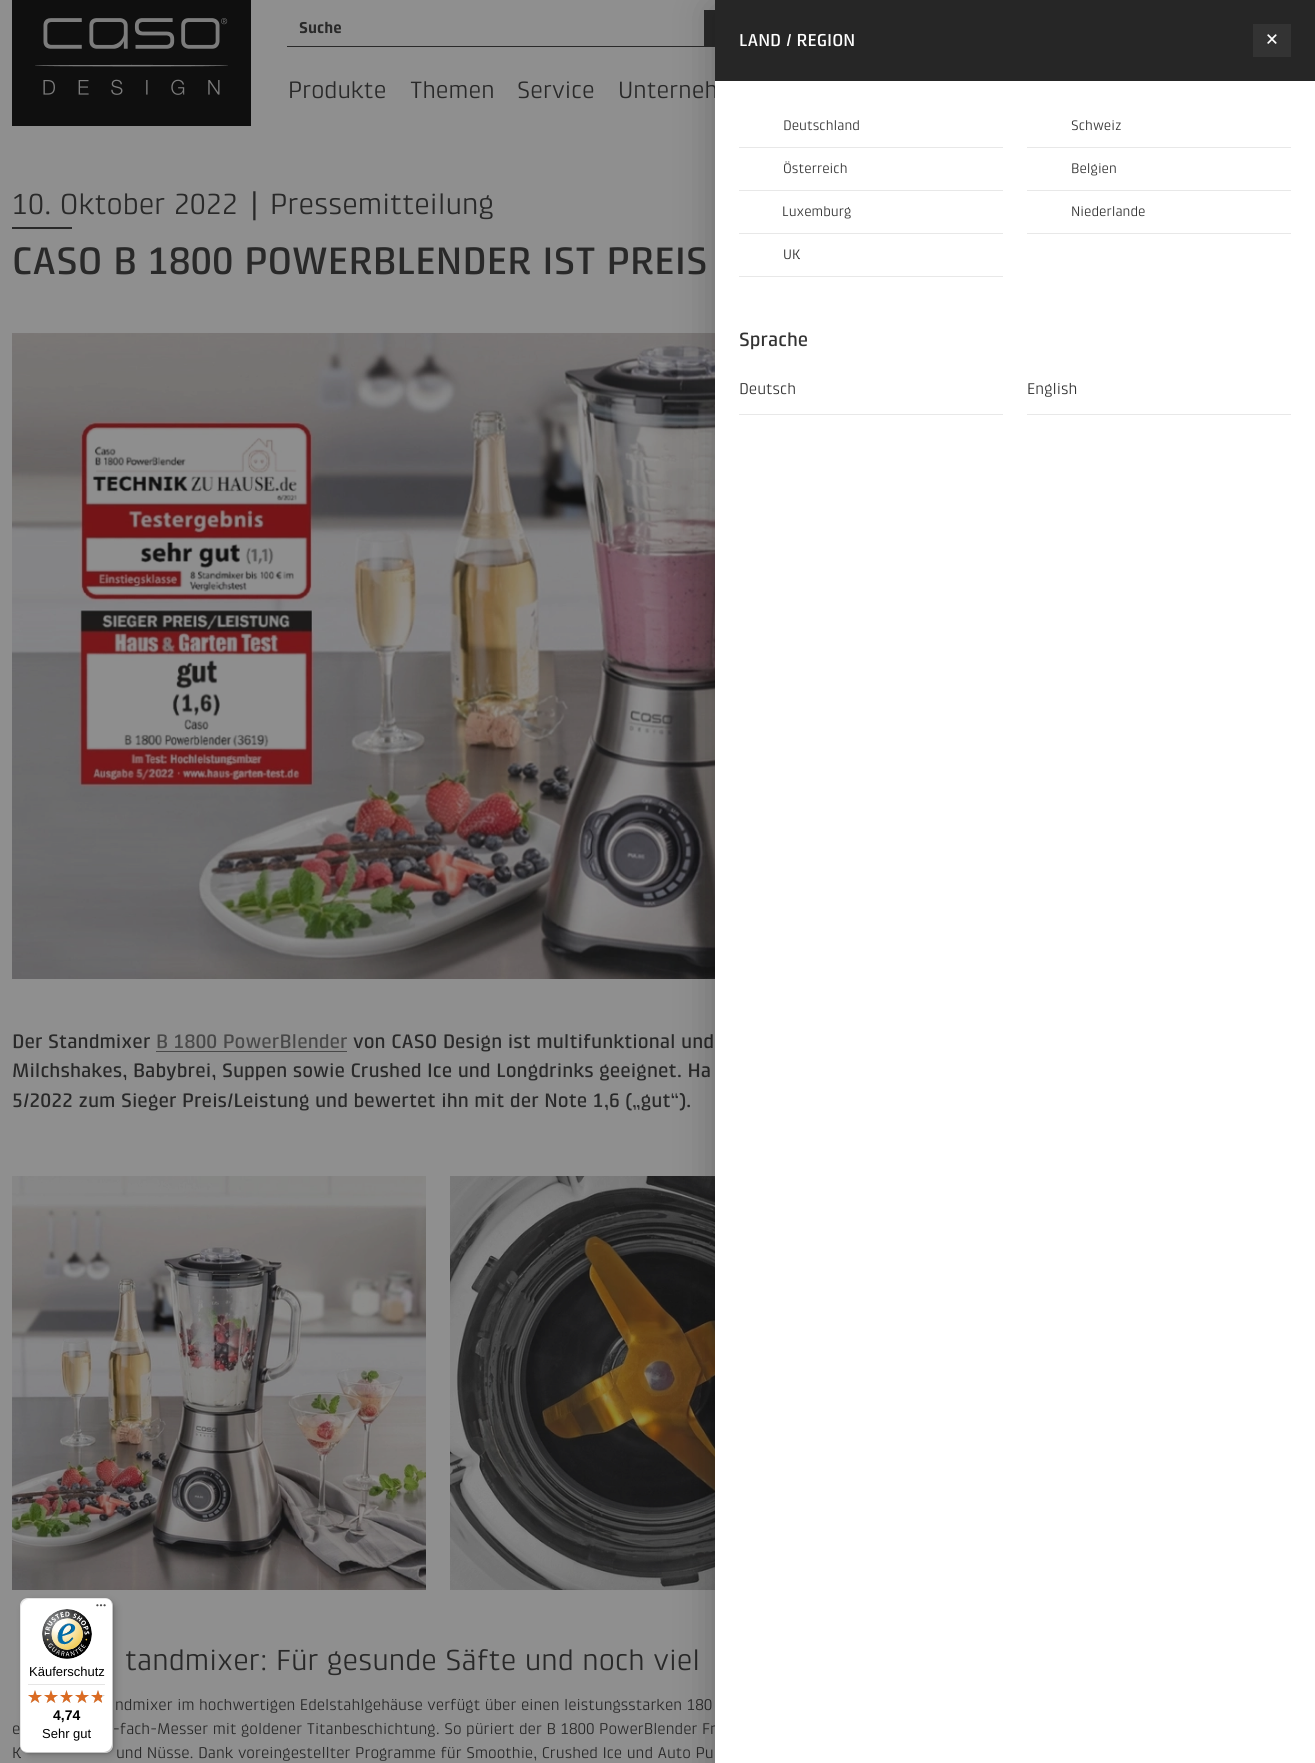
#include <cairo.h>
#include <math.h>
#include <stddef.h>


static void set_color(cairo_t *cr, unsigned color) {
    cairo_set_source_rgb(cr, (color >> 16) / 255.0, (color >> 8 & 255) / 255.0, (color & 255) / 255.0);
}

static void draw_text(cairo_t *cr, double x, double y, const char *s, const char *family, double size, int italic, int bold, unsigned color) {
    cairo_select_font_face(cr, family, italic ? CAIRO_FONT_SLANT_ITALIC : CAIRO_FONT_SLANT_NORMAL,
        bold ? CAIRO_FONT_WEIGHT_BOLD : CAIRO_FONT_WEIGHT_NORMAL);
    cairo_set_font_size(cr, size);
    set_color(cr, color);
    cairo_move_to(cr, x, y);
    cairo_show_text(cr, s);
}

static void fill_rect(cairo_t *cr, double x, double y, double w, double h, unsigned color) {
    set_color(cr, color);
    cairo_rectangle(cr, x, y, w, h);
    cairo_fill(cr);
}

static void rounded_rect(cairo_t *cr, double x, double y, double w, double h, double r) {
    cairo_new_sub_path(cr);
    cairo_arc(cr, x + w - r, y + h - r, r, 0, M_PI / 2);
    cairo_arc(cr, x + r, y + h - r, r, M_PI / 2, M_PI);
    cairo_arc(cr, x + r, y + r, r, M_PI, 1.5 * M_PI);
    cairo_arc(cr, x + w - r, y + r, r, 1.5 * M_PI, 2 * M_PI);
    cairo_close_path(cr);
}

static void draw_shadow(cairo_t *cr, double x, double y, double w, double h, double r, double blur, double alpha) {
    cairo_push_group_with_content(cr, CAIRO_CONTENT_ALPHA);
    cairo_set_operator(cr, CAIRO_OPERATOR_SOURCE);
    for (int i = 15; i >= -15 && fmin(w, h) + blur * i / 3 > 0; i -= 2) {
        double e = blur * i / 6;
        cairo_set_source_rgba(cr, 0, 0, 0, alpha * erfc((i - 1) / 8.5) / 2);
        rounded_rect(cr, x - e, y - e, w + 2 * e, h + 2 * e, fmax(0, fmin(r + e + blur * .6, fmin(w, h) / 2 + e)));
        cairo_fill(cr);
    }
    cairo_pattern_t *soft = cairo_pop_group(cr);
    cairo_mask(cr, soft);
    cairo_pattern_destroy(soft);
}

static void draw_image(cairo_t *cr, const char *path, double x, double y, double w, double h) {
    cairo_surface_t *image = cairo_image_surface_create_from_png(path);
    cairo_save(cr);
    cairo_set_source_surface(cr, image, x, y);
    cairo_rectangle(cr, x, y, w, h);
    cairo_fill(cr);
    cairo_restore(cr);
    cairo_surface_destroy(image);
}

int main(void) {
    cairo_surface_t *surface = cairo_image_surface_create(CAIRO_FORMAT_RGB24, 1315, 1763);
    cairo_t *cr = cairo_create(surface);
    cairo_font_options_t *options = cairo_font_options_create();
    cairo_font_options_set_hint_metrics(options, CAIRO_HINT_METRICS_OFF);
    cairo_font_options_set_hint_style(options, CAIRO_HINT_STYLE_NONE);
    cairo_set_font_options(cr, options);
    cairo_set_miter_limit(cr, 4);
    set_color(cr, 0x8F8F8F);
    cairo_paint(cr);
    fill_rect(cr, 12, 0, 239, 126, 0x0F0F0F);
    draw_image(cr, "assets/img1.png", 35, 18, 193, 77);
    draw_text(cr, 299, 33, "Suche", "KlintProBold", 16, 0, 1, 0x292929);
    fill_rect(cr, 704, 10, 11, 36, 0x292929);
    fill_rect(cr, 287, 46, 428, 1, 0x292929);
    draw_text(cr, 288, 98, "Produkte", "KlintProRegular", 24, 0, 0, 0x292929);
    draw_text(cr, 410, 98, "Themen", "KlintProRegular", 24, 0, 0, 0x292929);
    draw_text(cr, 517, 98, "Service", "KlintProRegular", 24, 0, 0, 0x292929);
    draw_text(cr, 618, 98, "Unterneh", "KlintProRegular", 24, 0, 0, 0x292929);
    draw_text(cr, 12, 214, "10. Oktober 2022", "KlintProRegular", 29.5, 0, 0, 0x292929);
    draw_text(cr, 247, 214, "∣", "DejaVu Sans", 29.5, 0, 0, 0x292929);
    draw_text(cr, 270, 214, "Pressemitteilung", "KlintProRegular", 29.5, 0, 0, 0x292929);
    fill_rect(cr, 12, 227, 60, 2, 0x292929);
    draw_text(cr, 12, 274, "CASO B 1800 POWERBLENDER IST PREIS", "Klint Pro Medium", 38.9, 0, 0, 0x292929);
    draw_image(cr, "assets/img2.png", 12, 333, 703, 646);
    draw_text(cr, 12, 1048, "Der Standmixer", "Klint Pro Medium", 19.8, 0, 0, 0x292929);
    draw_text(cr, 156, 1048, "B 1800 PowerBlender", "Klint Pro Medium", 19.8, 0, 0, 0x484848);
    fill_rect(cr, 156, 1051, 191, 1, 0x484848);
    draw_text(cr, 353, 1048, "von CASO Design ist multifunktional und", "Klint Pro Medium", 19.8, 0, 0, 0x292929);
    draw_text(cr, 12, 1077, "Milchshakes, Babybrei, Suppen sowie Crushed Ice und Longdrinks geeignet. Ha", "Klint Pro Medium", 19.8, 0, 0, 0x292929);
    draw_text(cr, 12, 1107, "5/2022 zum Sieger Preis/Leistung und bewertet ihn mit der Note 1,6 („gut“).", "Klint Pro Medium", 19.8, 0, 0, 0x292929);
    draw_image(cr, "assets/img3.png", 12, 1176, 414, 414);
    draw_image(cr, "assets/img4.png", 450, 1176, 265, 414);
    draw_text(cr, 125, 1670, "tandmixer: Für gesunde Säfte und noch viel", "KlintProRegular", 29.5, 0, 0, 0x292929);
    draw_text(cr, 115, 1710, "ndmixer im hochwertigen Edelstahlgehäuse verfügt über einen leistungsstarken 180", "KlintProRegular", 15.8, 0, 0, 0x292929);
    draw_text(cr, 12, 1734, "e", "KlintProRegular", 15.8, 0, 0, 0x292929);
    draw_text(cr, 113, 1734, "-fach-Messer mit goldener Titanbeschichtung. So püriert der B 1800 PowerBlender Fr", "KlintProRegular", 15.8, 0, 0, 0x292929);
    draw_text(cr, 12, 1758, "K", "KlintProRegular", 15.8, 0, 0, 0x292929);
    draw_text(cr, 116, 1758, "und Nüsse. Dank voreingestellter Programme für Smoothie, Crushed Ice und Auto Pul", "KlintProRegular", 15.8, 0, 0, 0x292929);
    set_color(cr, 0x000000);
    draw_shadow(cr, 715, 10, 600, 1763, 0, 20, 0.25);
    fill_rect(cr, 715, 81, 600, 1682, 0xFFFFFF);
    fill_rect(cr, 715, 0, 600, 81, 0x262626);
    draw_text(cr, 739, 46, "LAND / REGION", "Klint Pro Medium", 17.5, 0, 0, 0xFFFFFF);
    fill_rect(cr, 1253, 24, 38, 33, 0x333333);
    draw_image(cr, "assets/img5.png", 1267, 34, 10, 10);
    fill_rect(cr, 739, 147, 264, 1, 0xE8E8E8);
    draw_text(cr, 783, 130, "Deutschland", "KlintProRegular", 14, 0, 0, 0x333333);
    fill_rect(cr, 1027, 147, 264, 1, 0xE8E8E8);
    draw_text(cr, 1071, 130, "Schweiz", "KlintProRegular", 14, 0, 0, 0x333333);
    fill_rect(cr, 739, 190, 264, 1, 0xE8E8E8);
    draw_text(cr, 783, 173, "Österreich", "KlintProRegular", 14, 0, 0, 0x333333);
    fill_rect(cr, 1027, 190, 264, 1, 0xE8E8E8);
    draw_text(cr, 1071, 173, "Belgien", "KlintProRegular", 14, 0, 0, 0x333333);
    fill_rect(cr, 739, 233, 264, 1, 0xE8E8E8);
    draw_text(cr, 782, 216, "Luxemburg", "KlintProRegular", 14, 0, 0, 0x333333);
    fill_rect(cr, 1027, 233, 264, 1, 0xE8E8E8);
    draw_text(cr, 1071, 216, "Niederlande", "KlintProRegular", 14, 0, 0, 0x333333);
    fill_rect(cr, 739, 276, 264, 1, 0xE8E8E8);
    draw_text(cr, 783, 259, "UK", "KlintProRegular", 14, 0, 0, 0x333333);
    draw_text(cr, 739, 346, "Sprache", "Klint Pro Medium", 19.5, 0, 0, 0x333333);
    fill_rect(cr, 739, 414, 264, 1, 0xE8E8E8);
    draw_text(cr, 739, 394, "Deutsch", "KlintProRegular", 15.8, 0, 0, 0x333333);
    fill_rect(cr, 1027, 414, 264, 1, 0xE8E8E8);
    draw_text(cr, 1027, 394, "English", "KlintProRegular", 15.8, 0, 0, 0x333333);
    set_color(cr, 0x000000);
    draw_shadow(cr, 23, 1601, 93, 155, 8, 4, 0.15);
    draw_shadow(cr, 21, 1599, 93, 155, 8, 1, 0.15);
    set_color(cr, 0xFFFFFF);
    rounded_rect(cr, 20, 1598, 93, 155, 8);
    cairo_fill(cr);
    cairo_set_source_rgba(cr, 0, 0, 0, 0.1);
    cairo_new_path(cr);
    cairo_move_to(cr, 29, 1599);
    cairo_line_to(cr, 106, 1599);
    cairo_curve_to(cr, 108, 1599, 110, 1600, 112, 1602);
    cairo_curve_to(cr, 110, 1600, 108, 1598, 105, 1598);
    cairo_line_to(cr, 28, 1598);
    cairo_curve_to(cr, 24, 1598, 20, 1602, 20, 1606);
    cairo_line_to(cr, 20, 1745);
    cairo_curve_to(cr, 20, 1748, 22, 1750, 24, 1752);
    cairo_curve_to(cr, 22, 1750, 21, 1748, 21, 1746);
    cairo_line_to(cr, 21, 1607);
    cairo_curve_to(cr, 21, 1603, 25, 1599, 29, 1599);
    cairo_close_path(cr);
    cairo_fill(cr);
    cairo_set_source_rgba(cr, 0, 0, 0, 0.2);
    cairo_new_path(cr);
    cairo_move_to(cr, 21, 1749);
    cairo_curve_to(cr, 23, 1751, 25, 1753, 28, 1753);
    cairo_line_to(cr, 105, 1753);
    cairo_curve_to(cr, 109, 1753, 113, 1749, 113, 1745);
    cairo_line_to(cr, 113, 1606);
    cairo_curve_to(cr, 113, 1603, 111, 1601, 109, 1599);
    cairo_curve_to(cr, 111, 1601, 112, 1603, 112, 1605);
    cairo_line_to(cr, 112, 1744);
    cairo_curve_to(cr, 112, 1748, 108, 1752, 104, 1752);
    cairo_line_to(cr, 27, 1752);
    cairo_curve_to(cr, 25, 1752, 23, 1751, 21, 1749);
    cairo_close_path(cr);
    cairo_fill(cr);
    cairo_set_source_rgba(cr, 0.196, 0.196, 0.196, 0.2);
    cairo_new_path(cr);
    cairo_move_to(cr, 22, 1750);
    cairo_curve_to(cr, 23, 1752, 26, 1753, 28, 1753);
    cairo_line_to(cr, 105, 1753);
    cairo_curve_to(cr, 109, 1753, 113, 1749, 113, 1745);
    cairo_line_to(cr, 113, 1606);
    cairo_curve_to(cr, 113, 1604, 112, 1601, 110, 1600);
    cairo_curve_to(cr, 111, 1601, 112, 1603, 112, 1605);
    cairo_line_to(cr, 112, 1744);
    cairo_curve_to(cr, 112, 1749, 109, 1752, 104, 1752);
    cairo_line_to(cr, 27, 1752);
    cairo_curve_to(cr, 25, 1752, 23, 1751, 22, 1750);
    cairo_close_path(cr);
    cairo_fill(cr);
    cairo_set_source_rgba(cr, 1, 1, 1, 0.3);
    cairo_new_path(cr);
    cairo_move_to(cr, 112, 1606);
    cairo_curve_to(cr, 112, 1601, 109, 1598, 104, 1598);
    cairo_line_to(cr, 105, 1598);
    cairo_curve_to(cr, 109, 1598, 113, 1602, 113, 1606);
    cairo_line_to(cr, 113, 1745);
    cairo_curve_to(cr, 113, 1749, 109, 1753, 105, 1753);
    cairo_line_to(cr, 28, 1753);
    cairo_curve_to(cr, 24, 1753, 20, 1749, 20, 1745);
    cairo_line_to(cr, 20, 1744);
    cairo_curve_to(cr, 20, 1749, 23, 1752, 28, 1752);
    cairo_line_to(cr, 104, 1752);
    cairo_curve_to(cr, 109, 1752, 112, 1749, 112, 1744);
    cairo_close_path(cr);
    cairo_fill(cr);
    draw_image(cr, "assets/img6.png", 96, 1604, 10, 3);
    draw_image(cr, "assets/img7.png", 42, 1609, 50, 50);
    draw_text(cr, 29, 1676, "Käuferschutz", "Liberation Sans", 13, 0, 0, 0x000000);
    fill_rect(cr, 28, 1684, 77, 1, 0xE5E5E5);
    draw_image(cr, "assets/img8.png", 28, 1690, 14, 13);
    draw_image(cr, "assets/img8.png", 44, 1690, 14, 13);
    draw_image(cr, "assets/img9.png", 60, 1690, 13, 13);
    draw_image(cr, "assets/img8.png", 75, 1690, 14, 13);
    draw_image(cr, "assets/img8.png", 91, 1690, 14, 13);
    draw_image(cr, "assets/img10.png", 28, 1690, 14, 13);
    draw_image(cr, "assets/img10.png", 44, 1690, 14, 13);
    draw_image(cr, "assets/img11.png", 60, 1690, 13, 13);
    draw_image(cr, "assets/img10.png", 75, 1690, 14, 13);
    draw_image(cr, "assets/img12.png", 91, 1690, 11, 13);
    draw_text(cr, 53, 1720, "4,74", "Liberation Sans", 14, 0, 1, 0x000000);
    draw_text(cr, 42, 1738, "Sehr gut", "Liberation Sans", 13, 0, 0, 0x000000);
    cairo_surface_write_to_png(surface, "output.png");
    cairo_font_options_destroy(options);
    cairo_destroy(cr);
    cairo_surface_destroy(surface);
    return 0;
}
